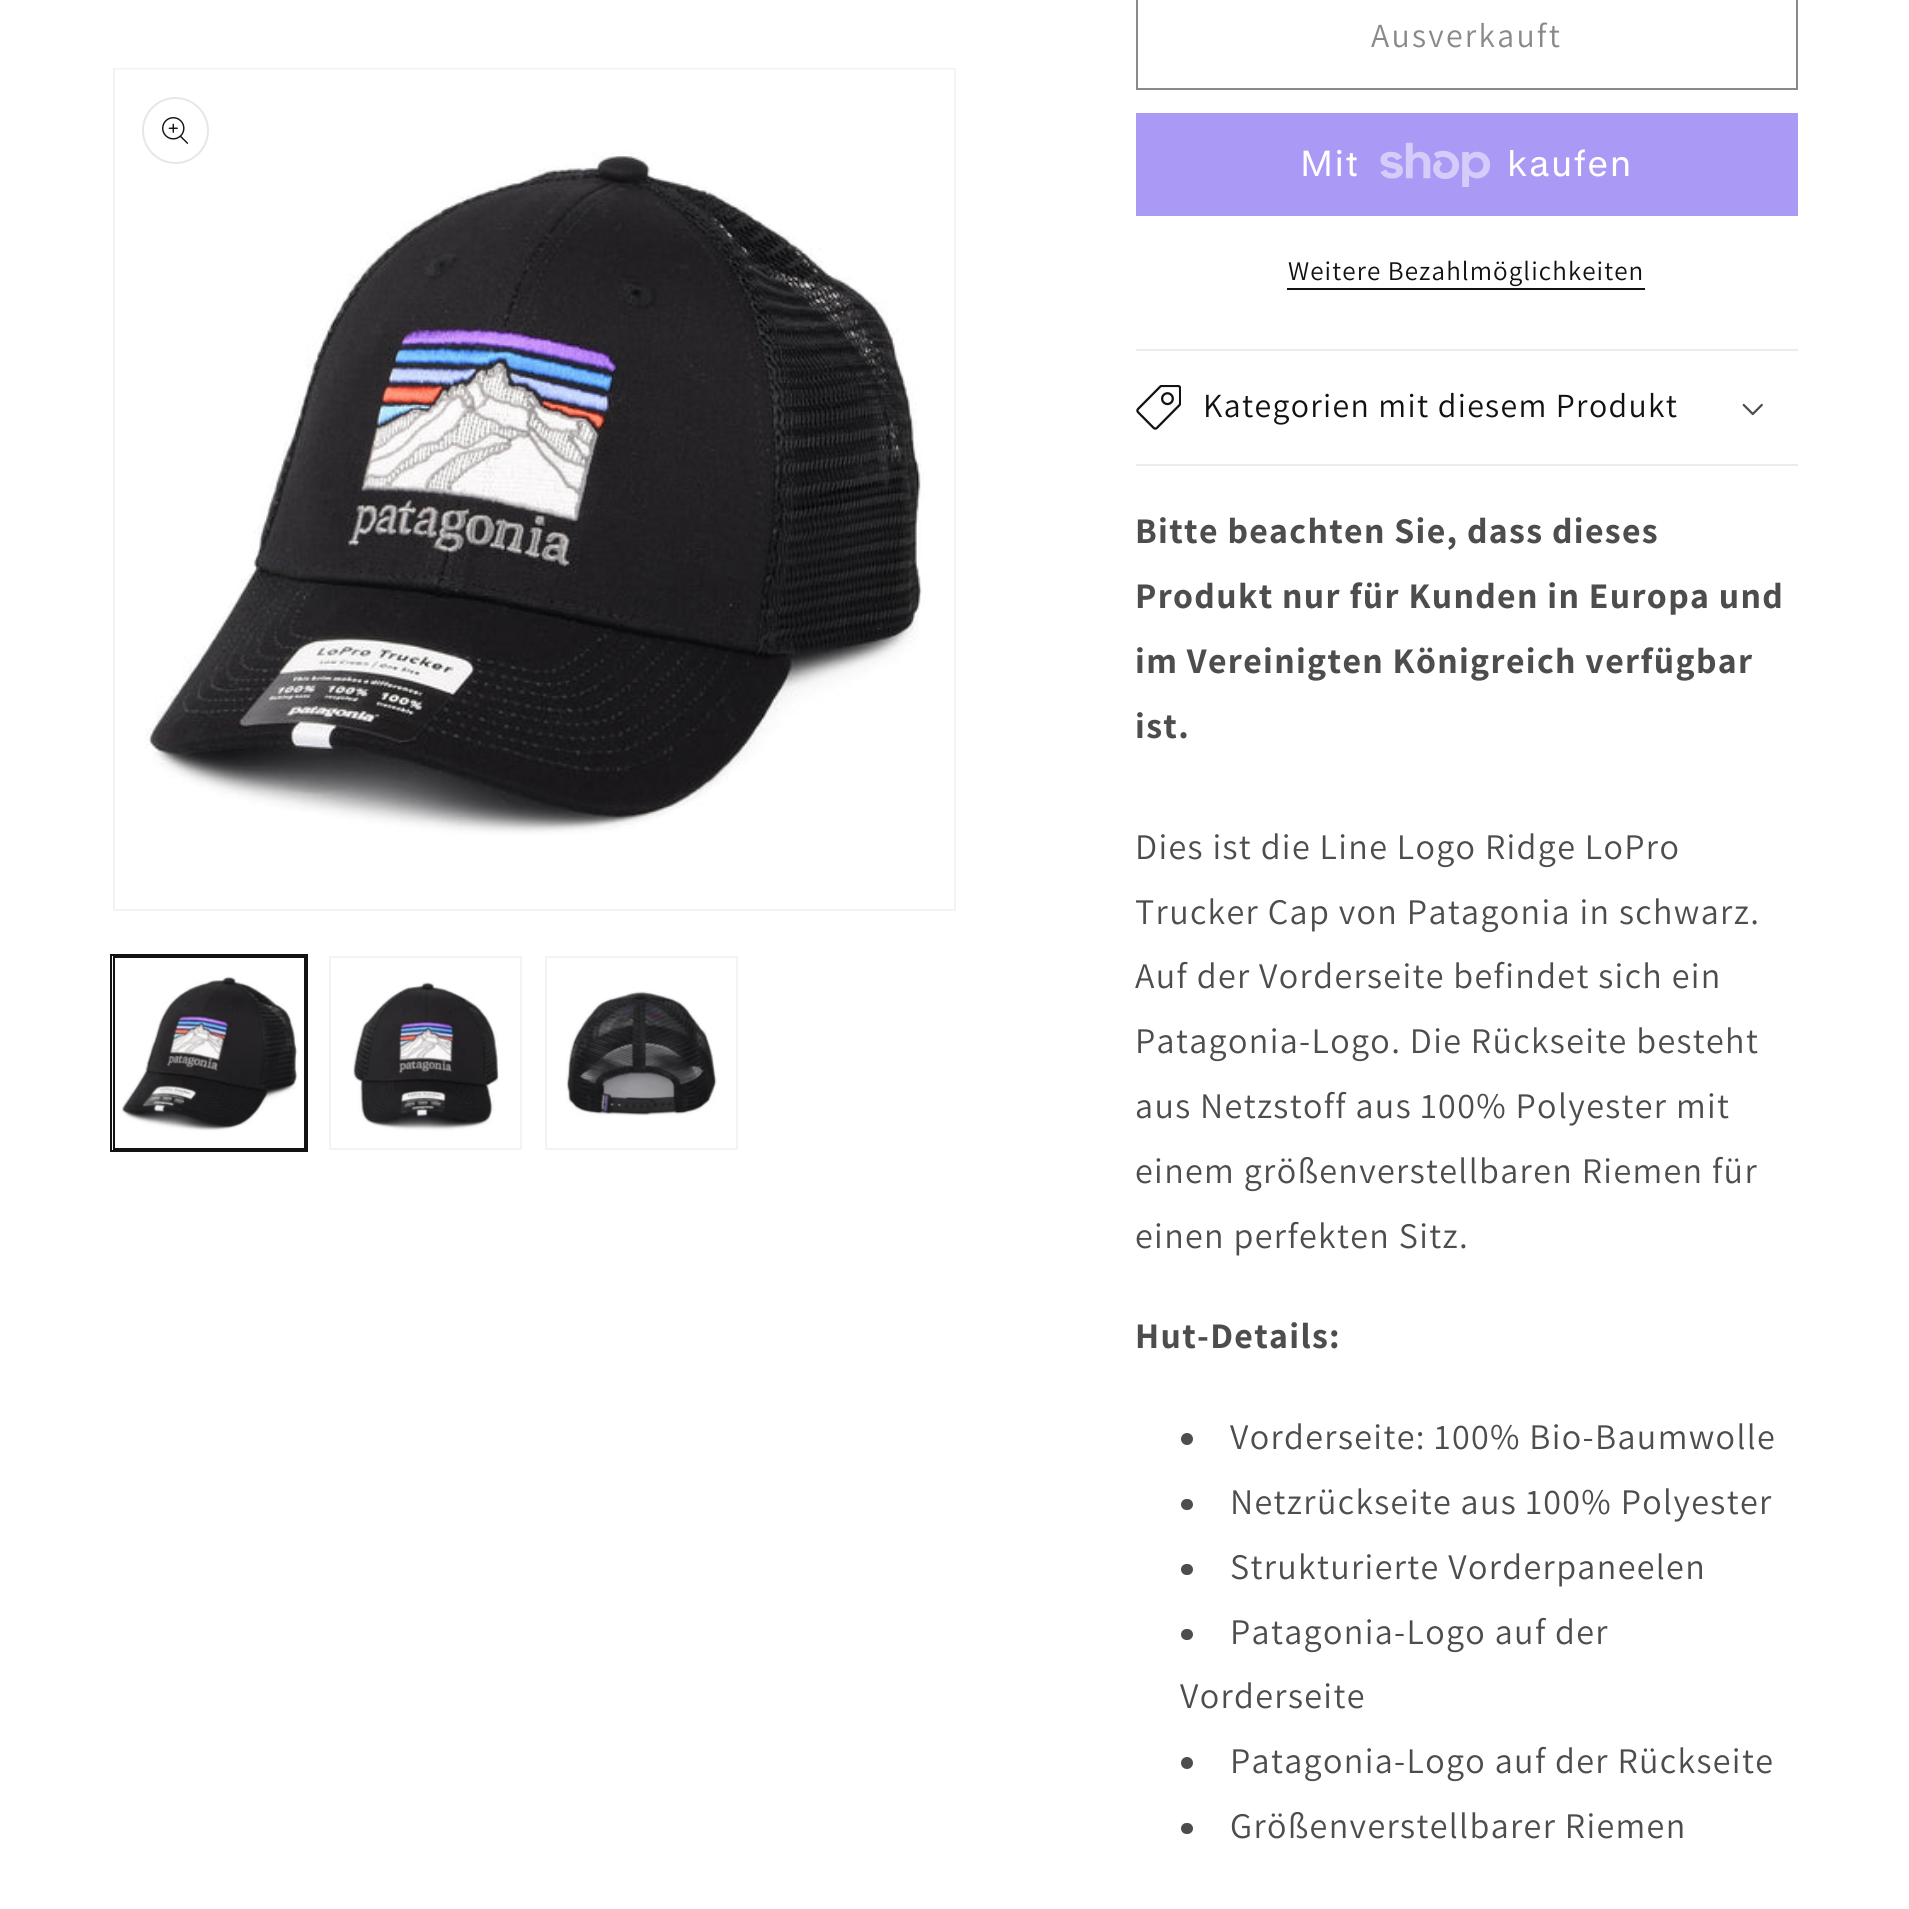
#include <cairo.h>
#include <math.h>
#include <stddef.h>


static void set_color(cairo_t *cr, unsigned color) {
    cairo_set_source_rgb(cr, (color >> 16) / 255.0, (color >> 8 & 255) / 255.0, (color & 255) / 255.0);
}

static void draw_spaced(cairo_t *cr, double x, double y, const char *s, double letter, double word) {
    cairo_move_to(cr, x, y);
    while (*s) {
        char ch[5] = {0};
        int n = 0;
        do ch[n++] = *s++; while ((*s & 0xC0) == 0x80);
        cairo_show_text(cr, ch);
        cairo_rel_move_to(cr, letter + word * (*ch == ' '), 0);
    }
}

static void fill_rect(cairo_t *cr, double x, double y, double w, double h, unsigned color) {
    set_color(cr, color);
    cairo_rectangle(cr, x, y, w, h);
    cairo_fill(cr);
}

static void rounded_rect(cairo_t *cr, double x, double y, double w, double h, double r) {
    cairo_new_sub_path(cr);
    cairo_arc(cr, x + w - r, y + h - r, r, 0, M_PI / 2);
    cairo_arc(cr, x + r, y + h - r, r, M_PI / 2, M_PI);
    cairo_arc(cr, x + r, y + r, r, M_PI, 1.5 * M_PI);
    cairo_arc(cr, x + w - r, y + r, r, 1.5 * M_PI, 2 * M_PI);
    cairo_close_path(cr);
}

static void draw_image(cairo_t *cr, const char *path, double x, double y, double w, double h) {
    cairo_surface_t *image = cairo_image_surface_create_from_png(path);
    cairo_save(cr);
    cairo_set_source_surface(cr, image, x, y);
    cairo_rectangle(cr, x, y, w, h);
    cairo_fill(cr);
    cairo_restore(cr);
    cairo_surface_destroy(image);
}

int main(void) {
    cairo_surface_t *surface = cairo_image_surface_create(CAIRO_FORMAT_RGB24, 1909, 1909);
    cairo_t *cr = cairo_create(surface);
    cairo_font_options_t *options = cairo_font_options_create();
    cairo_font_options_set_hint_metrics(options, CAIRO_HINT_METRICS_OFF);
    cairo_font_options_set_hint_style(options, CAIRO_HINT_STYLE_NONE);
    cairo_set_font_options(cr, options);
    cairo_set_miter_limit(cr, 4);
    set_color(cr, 0xFFFFFF);
    cairo_paint(cr);
    cairo_rectangle(cr, 114, 69, 841, 841);
    set_color(cr, 0xF3F3F3);
    cairo_stroke(cr);
    draw_image(cr, "assets/img1.png", 115, 69, 839, 766);
    cairo_arc(cr, 175.5, 130.5, 32.5, 0, 2 * M_PI);
    set_color(cr, 0xE7E7E7);
    cairo_stroke(cr);
    draw_image(cr, "assets/img2.png", 162, 117, 27, 27);
    cairo_rectangle(cr, 111, 955, 196, 196);
    set_color(cr, 0x121212);
    cairo_stroke(cr);
    cairo_rectangle(cr, 114, 957, 191, 192);
    cairo_stroke(cr);
    draw_image(cr, "assets/img3.png", 121, 976, 177, 155);
    cairo_rectangle(cr, 330, 957, 191, 192);
    set_color(cr, 0xF3F3F3);
    cairo_stroke(cr);
    draw_image(cr, "assets/img4.png", 353, 982, 146, 149);
    cairo_rectangle(cr, 546, 957, 191, 192);
    cairo_stroke(cr);
    draw_image(cr, "assets/img5.png", 566, 991, 151, 125);
    cairo_rectangle(cr, 1137, -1, 660, 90);
    set_color(cr, 0x898989);
    cairo_stroke(cr);
    cairo_select_font_face(cr, "Assistant", CAIRO_FONT_SLANT_NORMAL, CAIRO_FONT_WEIGHT_NORMAL);
    cairo_set_font_size(cr, 33.75);
    draw_spaced(cr, 1371, 47, "Ausverkauft", 2.25, 0);
    fill_rect(cr, 1136, 113, 662, 103, 0xAA99F5);
    cairo_select_font_face(cr, "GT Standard", CAIRO_FONT_SLANT_NORMAL, CAIRO_FONT_WEIGHT_NORMAL);
    cairo_set_font_size(cr, 36);
    set_color(cr, 0xFFFFFF);
    draw_spaced(cr, 1300, 176, "Mit", 1.35, 0);
    draw_image(cr, "assets/img6.png", 1380, 142, 111, 45);
    draw_spaced(cr, 1507, 176, "kaufen", 1.35, 0);
    cairo_select_font_face(cr, "Assistant", CAIRO_FONT_SLANT_NORMAL, CAIRO_FONT_WEIGHT_NORMAL);
    cairo_set_font_size(cr, 27);
    set_color(cr, 0x121212);
    draw_spaced(cr, 1288, 280, "Weitere Bezahlmöglichkeiten", 1.1, 0);
    fill_rect(cr, 1287, 288, 358, 2, 0x121212);
    fill_rect(cr, 1136, 349, 662, 2, 0xECECEC);
    fill_rect(cr, 1136, 464, 662, 2, 0xECECEC);
    draw_image(cr, "assets/img7.png", 1136, 385, 45, 45);
    cairo_set_font_size(cr, 33.75);
    set_color(cr, 0x121212);
    draw_spaced(cr, 1203, 417, "Kategorien mit diesem Produkt", 1.35, 0);
    draw_image(cr, "assets/img8.png", 1742, 403, 21, 13);
    cairo_select_font_face(cr, "Assistant", CAIRO_FONT_SLANT_NORMAL, CAIRO_FONT_WEIGHT_BOLD);
    cairo_set_font_size(cr, 36);
    set_color(cr, 0x4D4D4D);
    draw_spaced(cr, 1135, 543, "Bitte beachten Sie, dass dieses", 1.35, 0);
    draw_spaced(cr, 1135, 608, "Produkt nur für Kunden in Europa und", 1.35, 0);
    draw_spaced(cr, 1135, 673, "im Vereinigten Königreich verfügbar", 1.35, 0);
    draw_spaced(cr, 1135, 738, "ist.", 1.35, 0);
    cairo_select_font_face(cr, "Assistant", CAIRO_FONT_SLANT_NORMAL, CAIRO_FONT_WEIGHT_NORMAL);
    draw_spaced(cr, 1135, 859, "Dies ist die Line Logo Ridge LoPro", 1.35, 0);
    draw_spaced(cr, 1135, 924, "Trucker Cap von Patagonia in schwarz.", 1.35, 0);
    draw_spaced(cr, 1135, 988, "Auf der Vorderseite befindet sich ein", 1.35, 0);
    draw_spaced(cr, 1135, 1053, "Patagonia-Logo. Die Rückseite besteht", 1.35, 0);
    draw_spaced(cr, 1135, 1118, "aus Netzstoff aus 100% Polyester mit", 1.35, 0);
    draw_spaced(cr, 1135, 1183, "einem größenverstellbaren Riemen für", 1.35, 0);
    draw_spaced(cr, 1135, 1248, "einen perfekten Sitz.", 1.35, 0);
    cairo_select_font_face(cr, "Assistant", CAIRO_FONT_SLANT_NORMAL, CAIRO_FONT_WEIGHT_BOLD);
    draw_spaced(cr, 1135, 1348, "Hut-Details:", 1.35, 0);
    cairo_new_path(cr);
    cairo_arc(cr, 1187, 1439, 6, 0, 2 * M_PI);
    cairo_fill(cr);
    cairo_select_font_face(cr, "Assistant", CAIRO_FONT_SLANT_NORMAL, CAIRO_FONT_WEIGHT_NORMAL);
    draw_spaced(cr, 1230, 1449, "Vorderseite: 100% Bio-Baumwolle", 1.35, 0);
    rounded_rect(cr, 1181, 1499, 12, 11, 5.5);
    cairo_fill(cr);
    draw_spaced(cr, 1230, 1514, "Netzrückseite aus 100% Polyester", 1.35, 0);
    rounded_rect(cr, 1181, 1564, 12, 11, 5.5);
    cairo_fill(cr);
    draw_spaced(cr, 1230, 1579, "Strukturierte Vorderpaneelen", 1.35, 0);
    rounded_rect(cr, 1181, 1629, 12, 11, 5.5);
    cairo_fill(cr);
    draw_spaced(cr, 1230, 1644, "Patagonia-Logo auf der", 1.35, 0);
    draw_spaced(cr, 1180, 1708, "Vorderseite", 1.35, 0);
    cairo_new_path(cr);
    cairo_arc(cr, 1187, 1763, 6, 0, 2 * M_PI);
    cairo_fill(cr);
    draw_spaced(cr, 1230, 1773, "Patagonia-Logo auf der Rückseite", 1.35, 0);
    rounded_rect(cr, 1181, 1823, 12, 11, 5.5);
    cairo_fill(cr);
    draw_spaced(cr, 1230, 1838, "Größenverstellbarer Riemen", 1.35, 0);
    cairo_surface_write_to_png(surface, "output.png");
    cairo_font_options_destroy(options);
    cairo_destroy(cr);
    cairo_surface_destroy(surface);
    return 0;
}
